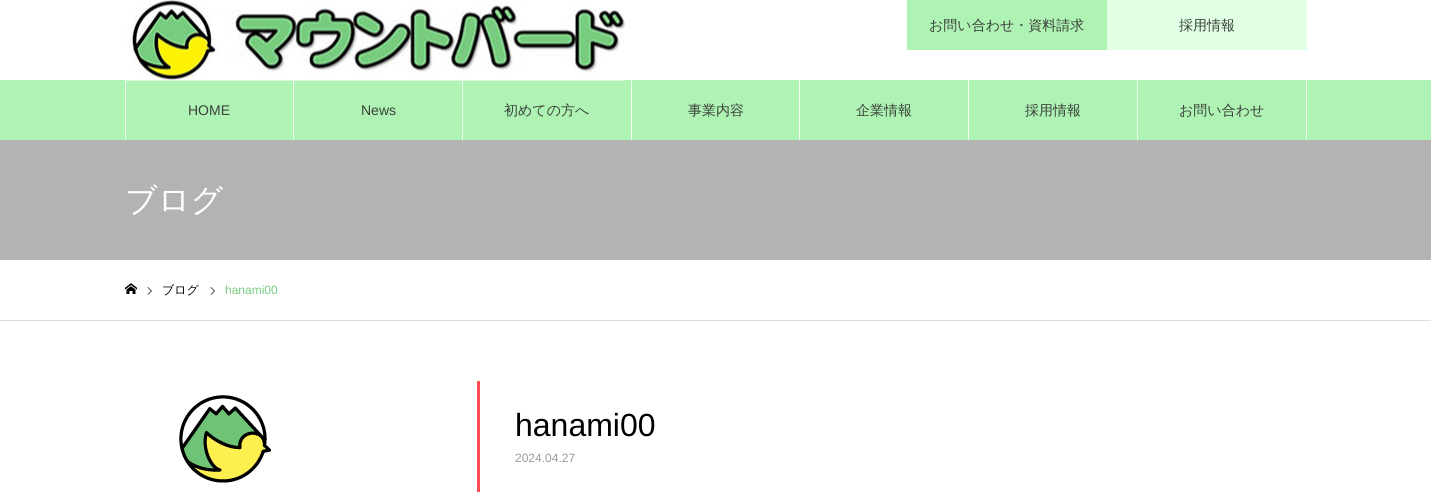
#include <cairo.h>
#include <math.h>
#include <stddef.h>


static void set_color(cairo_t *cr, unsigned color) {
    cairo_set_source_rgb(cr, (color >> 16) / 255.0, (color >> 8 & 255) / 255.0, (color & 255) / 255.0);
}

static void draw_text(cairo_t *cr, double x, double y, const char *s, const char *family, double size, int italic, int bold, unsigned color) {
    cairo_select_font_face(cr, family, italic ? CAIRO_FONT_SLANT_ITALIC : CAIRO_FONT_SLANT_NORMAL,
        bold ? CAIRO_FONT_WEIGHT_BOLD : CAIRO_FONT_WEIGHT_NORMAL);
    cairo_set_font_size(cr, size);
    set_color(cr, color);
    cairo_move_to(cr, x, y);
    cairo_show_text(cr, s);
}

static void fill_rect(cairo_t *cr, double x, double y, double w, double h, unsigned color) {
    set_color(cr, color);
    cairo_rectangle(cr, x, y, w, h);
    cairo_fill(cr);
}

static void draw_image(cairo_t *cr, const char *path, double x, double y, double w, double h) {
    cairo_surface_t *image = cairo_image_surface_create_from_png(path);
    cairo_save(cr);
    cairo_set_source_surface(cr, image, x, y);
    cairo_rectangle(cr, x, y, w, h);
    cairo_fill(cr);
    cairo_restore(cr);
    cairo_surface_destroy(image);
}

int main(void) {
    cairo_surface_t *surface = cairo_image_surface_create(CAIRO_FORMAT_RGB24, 1431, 492);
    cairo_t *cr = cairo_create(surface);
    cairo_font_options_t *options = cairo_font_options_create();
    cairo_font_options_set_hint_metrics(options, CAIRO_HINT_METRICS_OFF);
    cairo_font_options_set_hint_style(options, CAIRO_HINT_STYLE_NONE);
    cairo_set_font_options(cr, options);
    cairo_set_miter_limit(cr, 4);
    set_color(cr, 0xFFFFFF);
    cairo_paint(cr);
    fill_rect(cr, 0, 80, 1431, 60, 0xAEF2B4);
    fill_rect(cr, 125, 80, 1, 60, 0xEFFCF0);
    fill_rect(cr, 293, 80, 1, 60, 0xEFFCF0);
    fill_rect(cr, 462, 80, 1, 60, 0xEFFCF0);
    draw_image(cr, "assets/img1.png", 125, 0, 500, 81);
    fill_rect(cr, 907, 0, 200, 50, 0xAEF2B4);
    draw_text(cr, 929, 30, "お問い合わせ・資料請求", "WenQuanYi Zen Hei Medium", 14, 0, 0, 0x3A403A);
    fill_rect(cr, 1107, 0, 200, 50, 0xE0FFE3);
    draw_text(cr, 1179, 30, "採用情報", "WenQuanYi Zen Hei Medium", 14, 0, 0, 0x3A403A);
    draw_text(cr, 188, 115, "HOME", "Liberation Sans", 14, 0, 0, 0x3A403A);
    draw_text(cr, 361, 115, "News", "Liberation Sans", 14, 0, 0, 0x3A403A);
    fill_rect(cr, 631, 80, 1, 60, 0xEFFCF0);
    draw_text(cr, 504, 115, "初めての方へ", "WenQuanYi Zen Hei Medium", 14, 0, 0, 0x3A403A);
    fill_rect(cr, 799, 80, 1, 60, 0xEFFCF0);
    draw_text(cr, 688, 115, "事業内容", "WenQuanYi Zen Hei Medium", 14, 0, 0, 0x3A403A);
    fill_rect(cr, 968, 80, 1, 60, 0xEFFCF0);
    draw_text(cr, 856, 115, "企業情報", "WenQuanYi Zen Hei Medium", 14, 0, 0, 0x3A403A);
    fill_rect(cr, 1137, 80, 1, 60, 0xEFFCF0);
    draw_text(cr, 1025, 115, "採用情報", "WenQuanYi Zen Hei Medium", 14, 0, 0, 0x3A403A);
    fill_rect(cr, 1306, 80, 1, 60, 0xEFFCF0);
    draw_text(cr, 1179, 115, "お問い合わせ", "WenQuanYi Zen Hei Medium", 14, 0, 0, 0x3A403A);
    fill_rect(cr, 0, 140, 1431, 120, 0xB3B3B3);
    draw_text(cr, 125, 211, "ブログ", "WenQuanYi Zen Hei Medium", 32, 0, 0, 0xFFFFFF);
    fill_rect(cr, 0, 320, 1431, 1, 0xDDDDDD);
    draw_image(cr, "assets/img2.png", 125, 283, 12, 11);
    draw_image(cr, "assets/img3.png", 147, 287, 5, 8);
    draw_text(cr, 162, 294, "ブログ", "WenQuanYi Zen Hei Medium", 12, 0, 0, 0x000000);
    draw_image(cr, "assets/img3.png", 210, 287, 5, 8);
    draw_text(cr, 225, 294, "hanami00", "Liberation Sans", 12, 0, 0, 0x78CC80);
    draw_image(cr, "assets/img4.png", 179, 395, 92, 88);
    fill_rect(cr, 477, 381, 3, 111, 0xFF4B54);
    draw_text(cr, 515, 436, "hanami00", "Liberation Sans", 32, 0, 0, 0x000000);
    draw_text(cr, 515, 462, "2024.04.27", "Liberation Sans", 12, 0, 0, 0x999999);
    cairo_surface_write_to_png(surface, "output.png");
    cairo_font_options_destroy(options);
    cairo_destroy(cr);
    cairo_surface_destroy(surface);
    return 0;
}
